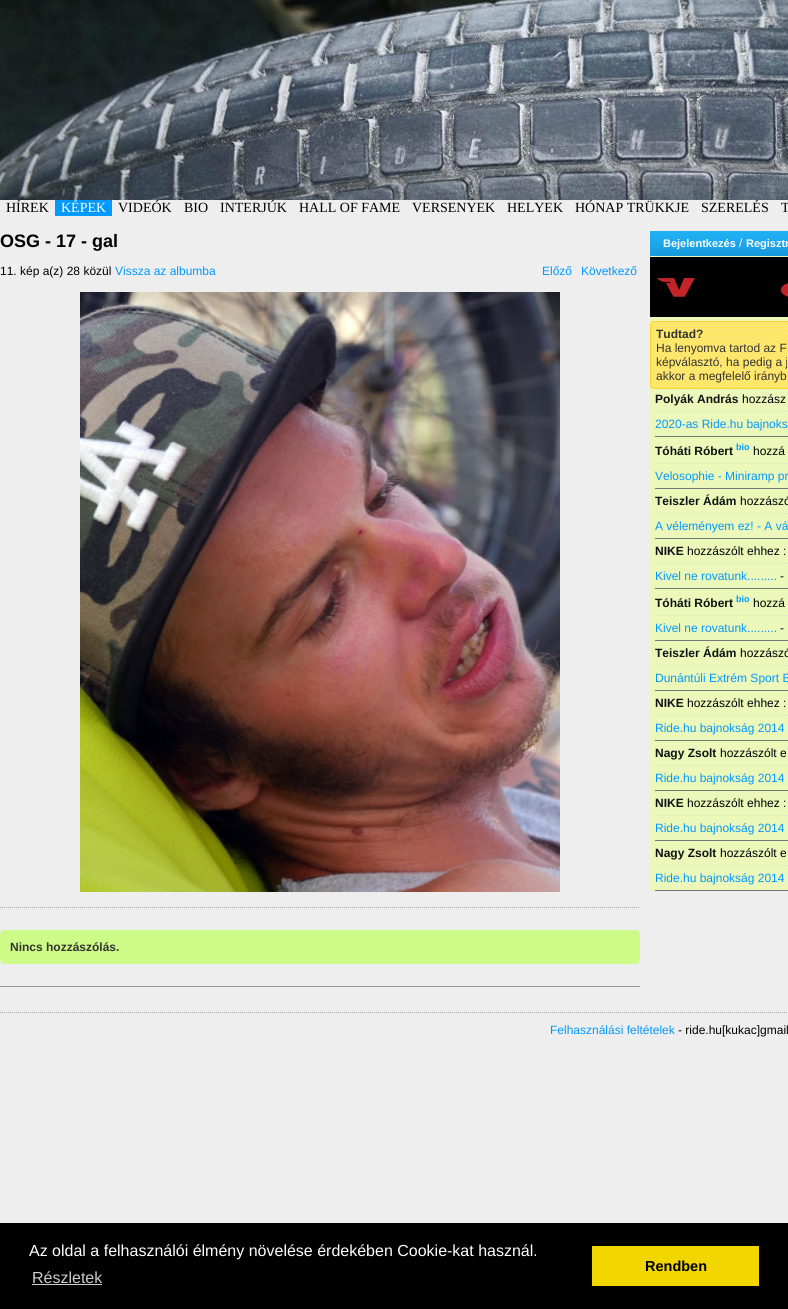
#include <cairo.h>
#include <math.h>
#include <stddef.h>


static void set_color(cairo_t *cr, unsigned color) {
    cairo_set_source_rgb(cr, (color >> 16) / 255.0, (color >> 8 & 255) / 255.0, (color & 255) / 255.0);
}

static void draw_text(cairo_t *cr, double x, double y, const char *s, const char *family, double size, int italic, int bold, unsigned color) {
    cairo_select_font_face(cr, family, italic ? CAIRO_FONT_SLANT_ITALIC : CAIRO_FONT_SLANT_NORMAL,
        bold ? CAIRO_FONT_WEIGHT_BOLD : CAIRO_FONT_WEIGHT_NORMAL);
    cairo_set_font_size(cr, size);
    set_color(cr, color);
    cairo_move_to(cr, x, y);
    cairo_show_text(cr, s);
}

static void fill_rect(cairo_t *cr, double x, double y, double w, double h, unsigned color) {
    set_color(cr, color);
    cairo_rectangle(cr, x, y, w, h);
    cairo_fill(cr);
}

static void rounded_rect(cairo_t *cr, double x, double y, double w, double h, double r) {
    cairo_new_sub_path(cr);
    cairo_arc(cr, x + w - r, y + h - r, r, 0, M_PI / 2);
    cairo_arc(cr, x + r, y + h - r, r, M_PI / 2, M_PI);
    cairo_arc(cr, x + r, y + r, r, M_PI, 1.5 * M_PI);
    cairo_arc(cr, x + w - r, y + r, r, 1.5 * M_PI, 2 * M_PI);
    cairo_close_path(cr);
}

static void draw_image(cairo_t *cr, const char *path, double x, double y, double w, double h) {
    cairo_surface_t *image = cairo_image_surface_create_from_png(path);
    cairo_save(cr);
    cairo_set_source_surface(cr, image, x, y);
    cairo_rectangle(cr, x, y, w, h);
    cairo_fill(cr);
    cairo_restore(cr);
    cairo_surface_destroy(image);
}

int main(void) {
    cairo_surface_t *surface = cairo_image_surface_create(CAIRO_FORMAT_RGB24, 788, 1309);
    cairo_t *cr = cairo_create(surface);
    cairo_font_options_t *options = cairo_font_options_create();
    cairo_font_options_set_hint_metrics(options, CAIRO_HINT_METRICS_OFF);
    cairo_font_options_set_hint_style(options, CAIRO_HINT_STYLE_NONE);
    cairo_set_font_options(cr, options);
    cairo_set_miter_limit(cr, 4);
    set_color(cr, 0xEEEEEE);
    cairo_paint(cr);
    draw_image(cr, "assets/img1.png", 0, 0, 788, 200);
    draw_text(cr, 6, 212, "HÍREK", "Liberation Serif", 14, 0, 0, 0x000000);
    fill_rect(cr, 55, 200, 57, 16, 0x0099FF);
    draw_text(cr, 61, 212, "KÉPEK", "Liberation Serif", 14, 0, 0, 0xFFFFFF);
    draw_text(cr, 118, 212, "VIDEÓK", "Liberation Serif", 14, 0, 0, 0x000000);
    draw_text(cr, 184, 212, "BIO", "Liberation Serif", 14, 0, 0, 0x000000);
    draw_text(cr, 220, 212, "INTERJÚK", "Liberation Serif", 14, 0, 0, 0x000000);
    draw_text(cr, 299, 212, "HALL OF FAME", "Liberation Serif", 14, 0, 0, 0x000000);
    draw_text(cr, 412, 212, "VERSENYEK", "Liberation Serif", 14, 0, 0, 0x000000);
    draw_text(cr, 507, 212, "HELYEK", "Liberation Serif", 14, 0, 0, 0x000000);
    draw_text(cr, 575, 212, "HÓNAP TRÜKKJE", "Liberation Serif", 14, 0, 0, 0x000000);
    draw_text(cr, 701, 212, "SZERELÉS", "Liberation Serif", 14, 0, 0, 0x000000);
    draw_text(cr, 781, 212, "T", "Liberation Serif", 14, 0, 0, 0x000000);
    draw_text(cr, 0, 247, "OSG - 17 - gal", "Liberation Sans", 18, 0, 1, 0x000000);
    draw_text(cr, 0, 275, "11. kép a(z) 28 közül", "Liberation Sans", 12, 0, 0, 0x000000);
    draw_text(cr, 115, 275, "Vissza az albumba", "Liberation Sans", 12, 0, 0, 0x0099FF);
    draw_text(cr, 542, 275, "Előző", "Liberation Sans", 12, 0, 0, 0x0099FF);
    draw_text(cr, 581, 275, "Következő", "Liberation Sans", 12, 0, 0, 0x0099FF);
    draw_image(cr, "assets/img2.png", 80, 292, 480, 600);
    cairo_new_path(cr);
    cairo_move_to(cr, 0, 907.5);
    cairo_line_to(cr, 640, 907.5);
    set_color(cr, 0xAAAAAA);
    cairo_set_line_width(cr, 1);
    cairo_set_dash(cr, (double[]){1, 1}, 2, 0);
    cairo_stroke(cr);
    fill_rect(cr, 0, 986, 640, 1, 0x999999);
    set_color(cr, 0xCDFB88);
    rounded_rect(cr, 0, 930, 640, 34, 5);
    cairo_fill(cr);
    draw_text(cr, 10, 951, "Nincs hozzászólás.", "Liberation Sans", 12, 0, 1, 0x333333);
    draw_image(cr, "assets/img3.png", 650, 231, 138, 25);
    draw_text(cr, 663, 247, "Bejelentkezés", "Liberation Sans", 11, 0, 1, 0xFFFFFF);
    draw_text(cr, 739, 247, "/", "Liberation Sans", 12, 0, 0, 0xFFFFFF);
    draw_text(cr, 746, 247, "Regisztr", "Liberation Sans", 11, 0, 1, 0xFFFFFF);
    fill_rect(cr, 650, 256, 138, 635, 0xEBF8BA);
    draw_image(cr, "assets/img4.png", 650, 257, 138, 60);
    draw_image(cr, "assets/img5.png", 650, 321, 138, 68);
    rounded_rect(cr, 650.5, 321.5, 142, 67, 3.5);
    set_color(cr, 0xFED22F);
    cairo_set_dash(cr, NULL, 0, 0);
    cairo_stroke(cr);
    draw_text(cr, 656, 338, "Tudtad?", "Liberation Sans", 12, 0, 1, 0x333333);
    draw_text(cr, 656, 352, "Ha lenyomva tartod az F", "Liberation Sans", 12, 0, 0, 0x333333);
    draw_text(cr, 656, 366, "képválasztó, ha pedig a j", "Liberation Sans", 12, 0, 0, 0x333333);
    draw_text(cr, 656, 380, "akkor a megfelelő irányb", "Liberation Sans", 12, 0, 0, 0x333333);
    cairo_new_path(cr);
    cairo_move_to(cr, 655, 411.5);
    cairo_line_to(cr, 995, 411.5);
    set_color(cr, 0xDDDDDD);
    cairo_set_dash(cr, (double[]){1, 1}, 2, 0);
    cairo_stroke(cr);
    draw_text(cr, 655, 403, "Polyák András", "Liberation Sans", 12, 0, 1, 0x111111);
    draw_text(cr, 742, 403, "hozzász", "Liberation Sans", 12, 0, 0, 0x000000);
    fill_rect(cr, 655, 436, 133, 1, 0x777777);
    draw_text(cr, 655, 428, "2020-as Ride.hu bajnoks", "Liberation Sans", 12, 0, 0, 0x0099FF);
    cairo_new_path(cr);
    cairo_move_to(cr, 655, 463.5);
    cairo_line_to(cr, 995, 463.5);
    set_color(cr, 0xDDDDDD);
    cairo_stroke(cr);
    draw_text(cr, 655, 455, "Tóháti Róbert", "Liberation Sans", 12, 0, 1, 0x111111);
    draw_text(cr, 736, 450, "bio", "Liberation Sans", 9, 0, 1, 0x0099FF);
    draw_text(cr, 753, 455, "hozzá", "Liberation Sans", 12, 0, 0, 0x000000);
    fill_rect(cr, 655, 488, 133, 1, 0x777777);
    draw_text(cr, 655, 480, "Velosophie - Miniramp pr", "Liberation Sans", 12, 0, 0, 0x0099FF);
    cairo_new_path(cr);
    cairo_move_to(cr, 655, 513.5);
    cairo_line_to(cr, 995, 513.5);
    set_color(cr, 0xDDDDDD);
    cairo_stroke(cr);
    draw_text(cr, 655, 505, "Teiszler Ádám", "Liberation Sans", 12, 0, 1, 0x111111);
    draw_text(cr, 740, 505, "hozzászó", "Liberation Sans", 12, 0, 0, 0x000000);
    fill_rect(cr, 655, 538, 133, 1, 0x777777);
    draw_text(cr, 655, 530, "A véleményem ez! - A vá", "Liberation Sans", 12, 0, 0, 0x0099FF);
    cairo_new_path(cr);
    cairo_move_to(cr, 655, 563.5);
    cairo_line_to(cr, 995, 563.5);
    set_color(cr, 0xDDDDDD);
    cairo_stroke(cr);
    draw_text(cr, 655, 555, "NIKE", "Liberation Sans", 12, 0, 1, 0x111111);
    draw_text(cr, 687, 555, "hozzászólt ehhez :", "Liberation Sans", 12, 0, 0, 0x000000);
    fill_rect(cr, 655, 588, 133, 1, 0x777777);
    draw_text(cr, 655, 580, "Kivel ne rovatunk.........", "Liberation Sans", 12, 0, 0, 0x0099FF);
    draw_text(cr, 780, 580, "-", "Liberation Sans", 12, 0, 0, 0x000000);
    cairo_new_path(cr);
    cairo_move_to(cr, 655, 615.5);
    cairo_line_to(cr, 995, 615.5);
    set_color(cr, 0xDDDDDD);
    cairo_stroke(cr);
    draw_text(cr, 655, 607, "Tóháti Róbert", "Liberation Sans", 12, 0, 1, 0x111111);
    draw_text(cr, 736, 602, "bio", "Liberation Sans", 9, 0, 1, 0x0099FF);
    draw_text(cr, 753, 607, "hozzá", "Liberation Sans", 12, 0, 0, 0x000000);
    fill_rect(cr, 655, 640, 133, 1, 0x777777);
    draw_text(cr, 655, 632, "Kivel ne rovatunk.........", "Liberation Sans", 12, 0, 0, 0x0099FF);
    draw_text(cr, 780, 632, "-", "Liberation Sans", 12, 0, 0, 0x000000);
    cairo_new_path(cr);
    cairo_move_to(cr, 655, 665.5);
    cairo_line_to(cr, 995, 665.5);
    set_color(cr, 0xDDDDDD);
    cairo_stroke(cr);
    draw_text(cr, 655, 657, "Teiszler Ádám", "Liberation Sans", 12, 0, 1, 0x111111);
    draw_text(cr, 740, 657, "hozzászó", "Liberation Sans", 12, 0, 0, 0x000000);
    fill_rect(cr, 655, 690, 133, 1, 0x777777);
    draw_text(cr, 655, 682, "Dunántúli Extrém Sport B", "Liberation Sans", 12, 0, 0, 0x0099FF);
    cairo_new_path(cr);
    cairo_move_to(cr, 655, 715.5);
    cairo_line_to(cr, 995, 715.5);
    set_color(cr, 0xDDDDDD);
    cairo_stroke(cr);
    draw_text(cr, 655, 707, "NIKE", "Liberation Sans", 12, 0, 1, 0x111111);
    draw_text(cr, 687, 707, "hozzászólt ehhez :", "Liberation Sans", 12, 0, 0, 0x000000);
    fill_rect(cr, 655, 740, 133, 1, 0x777777);
    draw_text(cr, 655, 732, "Ride.hu bajnokság 2014", "Liberation Sans", 12, 0, 0, 0x0099FF);
    cairo_new_path(cr);
    cairo_move_to(cr, 655, 765.5);
    cairo_line_to(cr, 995, 765.5);
    set_color(cr, 0xDDDDDD);
    cairo_stroke(cr);
    draw_text(cr, 655, 757, "Nagy Zsolt", "Liberation Sans", 12, 0, 1, 0x111111);
    draw_text(cr, 720, 757, "hozzászólt e", "Liberation Sans", 12, 0, 0, 0x000000);
    fill_rect(cr, 655, 790, 133, 1, 0x777777);
    draw_text(cr, 655, 782, "Ride.hu bajnokság 2014", "Liberation Sans", 12, 0, 0, 0x0099FF);
    cairo_new_path(cr);
    cairo_move_to(cr, 655, 815.5);
    cairo_line_to(cr, 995, 815.5);
    set_color(cr, 0xDDDDDD);
    cairo_stroke(cr);
    draw_text(cr, 655, 807, "NIKE", "Liberation Sans", 12, 0, 1, 0x111111);
    draw_text(cr, 687, 807, "hozzászólt ehhez :", "Liberation Sans", 12, 0, 0, 0x000000);
    fill_rect(cr, 655, 840, 133, 1, 0x777777);
    draw_text(cr, 655, 832, "Ride.hu bajnokság 2014", "Liberation Sans", 12, 0, 0, 0x0099FF);
    cairo_new_path(cr);
    cairo_move_to(cr, 655, 865.5);
    cairo_line_to(cr, 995, 865.5);
    set_color(cr, 0xDDDDDD);
    cairo_stroke(cr);
    draw_text(cr, 655, 857, "Nagy Zsolt", "Liberation Sans", 12, 0, 1, 0x111111);
    draw_text(cr, 720, 857, "hozzászólt e", "Liberation Sans", 12, 0, 0, 0x000000);
    fill_rect(cr, 655, 890, 133, 1, 0x777777);
    draw_text(cr, 655, 882, "Ride.hu bajnokság 2014", "Liberation Sans", 12, 0, 0, 0x0099FF);
    cairo_new_path(cr);
    cairo_move_to(cr, 0, 1012.5);
    cairo_line_to(cr, 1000, 1012.5);
    set_color(cr, 0xAAAAAA);
    cairo_stroke(cr);
    draw_text(cr, 550, 1034, "Felhasználási feltételek", "Liberation Sans", 12, 0, 0, 0x0099FF);
    draw_text(cr, 678, 1034, "- ride.hu[kukac]gmail", "Liberation Sans", 12, 0, 0, 0x000000);
    fill_rect(cr, 0, 1223, 788, 86, 0x000000);
    draw_text(cr, 29, 1256, "Az oldal a felhasználói élmény növelése érdekében Cookie-kat használ.", "Liberation Sans", 16, 0, 0, 0xFFFFFF);
    draw_text(cr, 32, 1283, "Részletek", "Liberation Sans", 16, 0, 0, 0xCCCCCC);
    fill_rect(cr, 32, 1284, 70, 1, 0xCCCCCC);
    fill_rect(cr, 592, 1246, 167, 40, 0xF1D600);
    draw_text(cr, 645, 1271, "Rendben", "Liberation Sans", 14.5, 0, 1, 0x000000);
    cairo_surface_write_to_png(surface, "output.png");
    cairo_font_options_destroy(options);
    cairo_destroy(cr);
    cairo_surface_destroy(surface);
    return 0;
}
